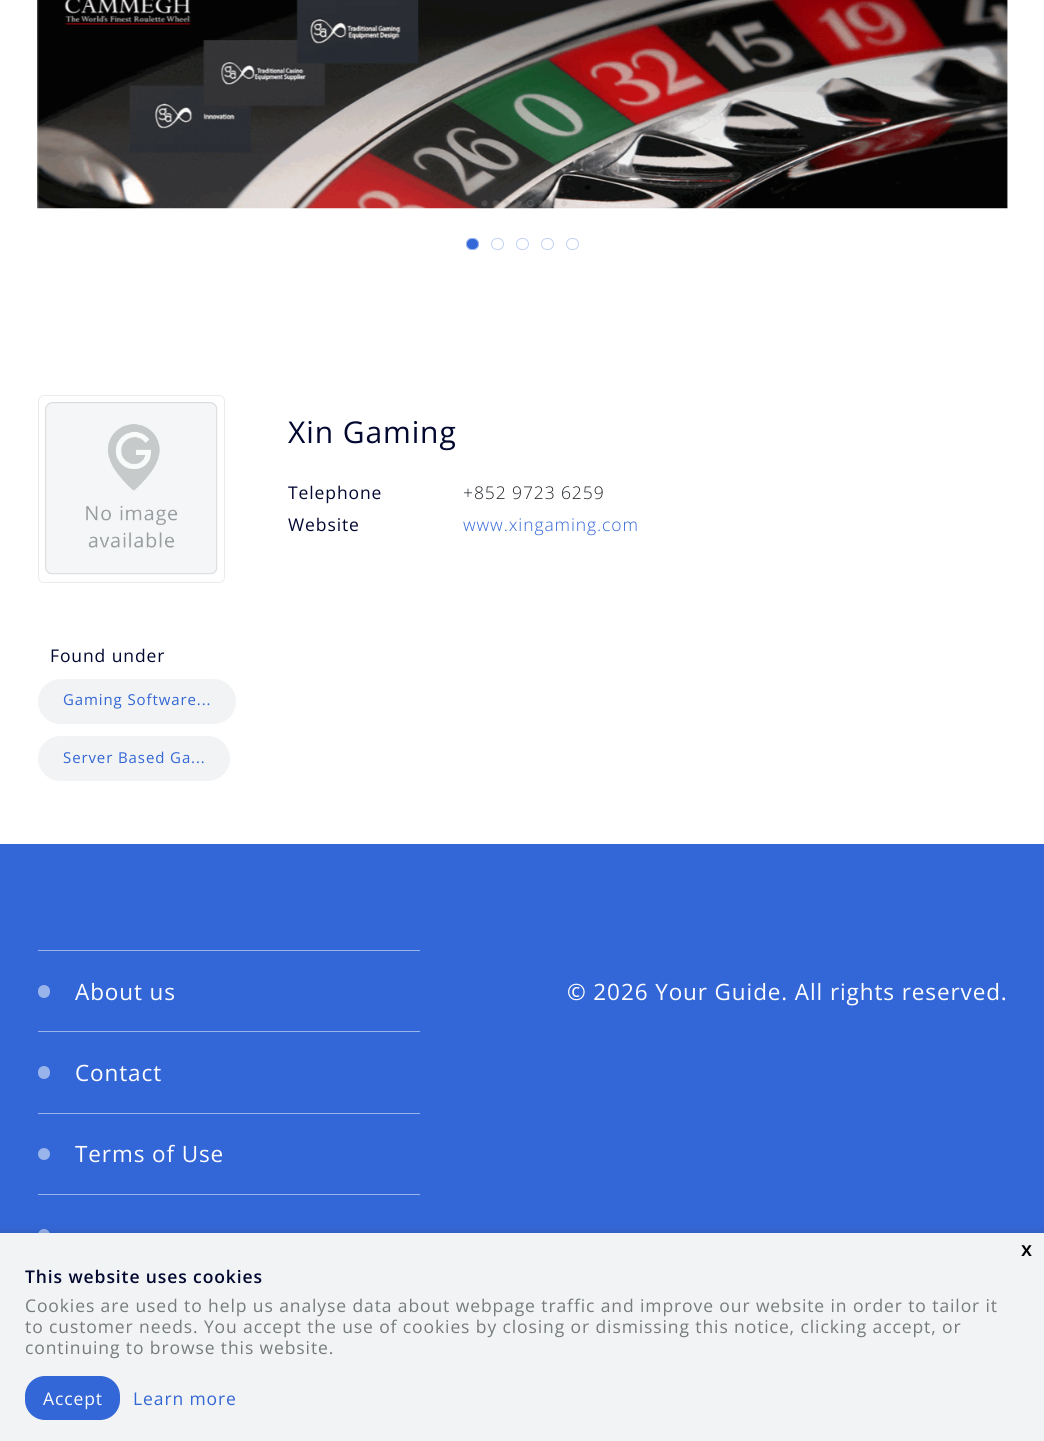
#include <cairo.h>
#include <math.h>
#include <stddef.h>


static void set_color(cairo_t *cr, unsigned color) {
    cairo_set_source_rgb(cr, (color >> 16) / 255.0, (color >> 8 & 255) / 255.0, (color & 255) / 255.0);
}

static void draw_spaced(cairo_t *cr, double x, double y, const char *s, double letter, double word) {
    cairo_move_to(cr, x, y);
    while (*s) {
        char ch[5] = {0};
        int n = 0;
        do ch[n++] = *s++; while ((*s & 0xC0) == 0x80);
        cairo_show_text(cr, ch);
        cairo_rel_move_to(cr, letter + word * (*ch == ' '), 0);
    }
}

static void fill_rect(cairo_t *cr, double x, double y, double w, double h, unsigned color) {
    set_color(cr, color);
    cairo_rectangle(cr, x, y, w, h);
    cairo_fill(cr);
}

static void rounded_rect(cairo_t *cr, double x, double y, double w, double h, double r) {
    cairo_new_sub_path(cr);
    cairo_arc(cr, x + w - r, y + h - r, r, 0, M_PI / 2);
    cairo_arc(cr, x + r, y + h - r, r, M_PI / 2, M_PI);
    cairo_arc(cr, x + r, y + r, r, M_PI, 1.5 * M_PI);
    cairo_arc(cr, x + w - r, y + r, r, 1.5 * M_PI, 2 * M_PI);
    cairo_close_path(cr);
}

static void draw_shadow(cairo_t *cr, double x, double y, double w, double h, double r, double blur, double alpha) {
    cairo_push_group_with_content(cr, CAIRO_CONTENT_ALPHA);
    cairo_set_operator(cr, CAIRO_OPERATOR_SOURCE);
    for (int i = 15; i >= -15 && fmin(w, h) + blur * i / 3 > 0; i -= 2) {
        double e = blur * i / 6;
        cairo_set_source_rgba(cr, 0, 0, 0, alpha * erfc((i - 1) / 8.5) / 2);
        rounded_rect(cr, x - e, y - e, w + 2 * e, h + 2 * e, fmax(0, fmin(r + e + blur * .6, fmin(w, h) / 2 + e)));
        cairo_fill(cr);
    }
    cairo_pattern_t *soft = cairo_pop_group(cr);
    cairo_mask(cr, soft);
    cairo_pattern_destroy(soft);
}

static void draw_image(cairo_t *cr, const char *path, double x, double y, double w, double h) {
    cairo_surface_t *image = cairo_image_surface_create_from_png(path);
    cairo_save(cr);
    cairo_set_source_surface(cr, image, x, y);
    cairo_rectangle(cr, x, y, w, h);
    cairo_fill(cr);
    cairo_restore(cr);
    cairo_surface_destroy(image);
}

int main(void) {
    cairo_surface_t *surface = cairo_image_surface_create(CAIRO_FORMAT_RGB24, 1044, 1441);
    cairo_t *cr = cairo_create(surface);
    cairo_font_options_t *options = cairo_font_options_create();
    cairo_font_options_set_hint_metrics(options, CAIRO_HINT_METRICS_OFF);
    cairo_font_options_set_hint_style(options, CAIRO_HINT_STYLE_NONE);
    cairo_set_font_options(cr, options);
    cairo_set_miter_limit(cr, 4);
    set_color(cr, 0xFFFFFF);
    cairo_paint(cr);
    draw_image(cr, "assets/img1.png", 37, 0, 971, 209);
    set_color(cr, 0x3366D6);
    rounded_rect(cr, 466, 238, 13, 12, 6);
    cairo_fill(cr);
    rounded_rect(cr, 466.5, 238.5, 12, 11, 5.5);
    cairo_set_source_rgba(cr, 1, 1, 1, 0.5);
    cairo_set_line_width(cr, 1);
    cairo_stroke(cr);
    rounded_rect(cr, 491.5, 238.5, 12, 11, 5.5);
    set_color(cr, 0xC2D1F3);
    cairo_stroke(cr);
    rounded_rect(cr, 516.5, 238.5, 12, 11, 5.5);
    cairo_stroke(cr);
    rounded_rect(cr, 541.5, 238.5, 12, 11, 5.5);
    cairo_stroke(cr);
    rounded_rect(cr, 566.5, 238.5, 12, 11, 5.5);
    cairo_stroke(cr);
    cairo_select_font_face(cr, "Open Sans", CAIRO_FONT_SLANT_NORMAL, CAIRO_FONT_WEIGHT_NORMAL);
    cairo_set_font_size(cr, 30);
    set_color(cr, 0x01072F);
    draw_spaced(cr, 288, 443, "Xin Gaming", 0.9, 0);
    cairo_set_font_size(cr, 17.5);
    draw_spaced(cr, 288, 499, "Telephone", 0.9, 0);
    cairo_select_font_face(cr, "Open Sans Light", CAIRO_FONT_SLANT_NORMAL, CAIRO_FONT_WEIGHT_NORMAL);
    set_color(cr, 0x212529);
    draw_spaced(cr, 463, 499, "+852 9723 6259", 0.9, 0);
    cairo_select_font_face(cr, "Open Sans", CAIRO_FONT_SLANT_NORMAL, CAIRO_FONT_WEIGHT_NORMAL);
    set_color(cr, 0x01072F);
    draw_spaced(cr, 288, 531, "Website", 0.9, 0);
    cairo_select_font_face(cr, "Open Sans Light", CAIRO_FONT_SLANT_NORMAL, CAIRO_FONT_WEIGHT_NORMAL);
    set_color(cr, 0x3366D6);
    draw_spaced(cr, 463, 531, "www.xingaming.com", 0.9, 0);
    rounded_rect(cr, 38.5, 395.5, 186, 187, 5.5);
    set_color(cr, 0xE9ECEF);
    cairo_stroke(cr);
    draw_image(cr, "assets/img2.png", 45, 402, 173, 173);
    cairo_select_font_face(cr, "Open Sans", CAIRO_FONT_SLANT_NORMAL, CAIRO_FONT_WEIGHT_NORMAL);
    set_color(cr, 0x01072F);
    draw_spaced(cr, 50, 662, "Found under", 0.9, 0);
    set_color(cr, 0xF1F3F4);
    rounded_rect(cr, 38, 679, 198, 45, 22.5);
    cairo_fill(cr);
    cairo_set_font_size(cr, 15);
    set_color(cr, 0x3366D6);
    draw_spaced(cr, 63, 705, "Gaming Software...", 0.9, 0);
    set_color(cr, 0xF1F3F4);
    rounded_rect(cr, 38, 736, 192, 45, 22.5);
    cairo_fill(cr);
    set_color(cr, 0x3366D6);
    draw_spaced(cr, 63, 763, "Server Based Ga...", 0.9, 0);
    fill_rect(cr, 0, 844, 1044, 389, 0x3366D6);
    fill_rect(cr, 38, 950, 382, 1, 0x99B3EB);
    rounded_rect(cr, 38, 985, 12, 13, 6);
    cairo_fill(cr);
    cairo_set_font_size(cr, 22.5);
    set_color(cr, 0xFFFFFF);
    draw_spaced(cr, 75, 1000, "About us", 0.9, 0);
    fill_rect(cr, 38, 1031, 382, 1, 0x99B3EB);
    rounded_rect(cr, 38, 1066, 12, 13, 6);
    cairo_fill(cr);
    set_color(cr, 0xFFFFFF);
    draw_spaced(cr, 75, 1081, "Contact", 0.9, 0);
    fill_rect(cr, 38, 1113, 382, 1, 0x99B3EB);
    cairo_new_path(cr);
    cairo_arc(cr, 44, 1154, 6, 0, 2 * M_PI);
    cairo_fill(cr);
    set_color(cr, 0xFFFFFF);
    draw_spaced(cr, 75, 1162, "Terms of Use", 0.9, 0);
    fill_rect(cr, 38, 1194, 382, 1, 0x99B3EB);
    cairo_new_path(cr);
    cairo_arc(cr, 44, 1235, 6, 0, 2 * M_PI);
    cairo_fill(cr);
    set_color(cr, 0xFFFFFF);
    draw_spaced(cr, 567, 1000, "© 2026 Your Guide. All rights reserved.", 0.9, 0);
    set_color(cr, 0x2F323A);
    draw_shadow(cr, -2, 1233, 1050, 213, 0, 4, 0.25);
    fill_rect(cr, 0, 1233, 1044, 208, 0xF1F3F4);
    cairo_select_font_face(cr, "Open Sans SemiBold", CAIRO_FONT_SLANT_NORMAL, CAIRO_FONT_WEIGHT_NORMAL);
    cairo_set_font_size(cr, 20);
    set_color(cr, 0x000000);
    draw_spaced(cr, 1021, 1256, "x", 0.9, 0);
    cairo_set_font_size(cr, 17.5);
    set_color(cr, 0x01072F);
    draw_spaced(cr, 25, 1283, "This website uses cookies", 0.9, 0);
    cairo_select_font_face(cr, "Open Sans", CAIRO_FONT_SLANT_NORMAL, CAIRO_FONT_WEIGHT_NORMAL);
    set_color(cr, 0x777B7C);
    draw_spaced(cr, 25, 1312, "Cookies are used to help us analyse data about webpage traffic and improve our website in order to tailor it", 0.9, 0);
    draw_spaced(cr, 25, 1333, "to customer needs. You accept the use of cookies by closing or dismissing this notice, clicking accept, or", 0.9, 0);
    draw_spaced(cr, 25, 1354, "continuing to browse this website.", 0.9, 0);
    set_color(cr, 0x3366D6);
    rounded_rect(cr, 25, 1376, 95, 44, 20);
    cairo_fill(cr);
    set_color(cr, 0xFFFFFF);
    draw_spaced(cr, 43, 1405, "Accept", 0.9, 0);
    set_color(cr, 0x3366D6);
    draw_spaced(cr, 133, 1405, "Learn more", 0.9, 0);
    cairo_surface_write_to_png(surface, "output.png");
    cairo_font_options_destroy(options);
    cairo_destroy(cr);
    cairo_surface_destroy(surface);
    return 0;
}
